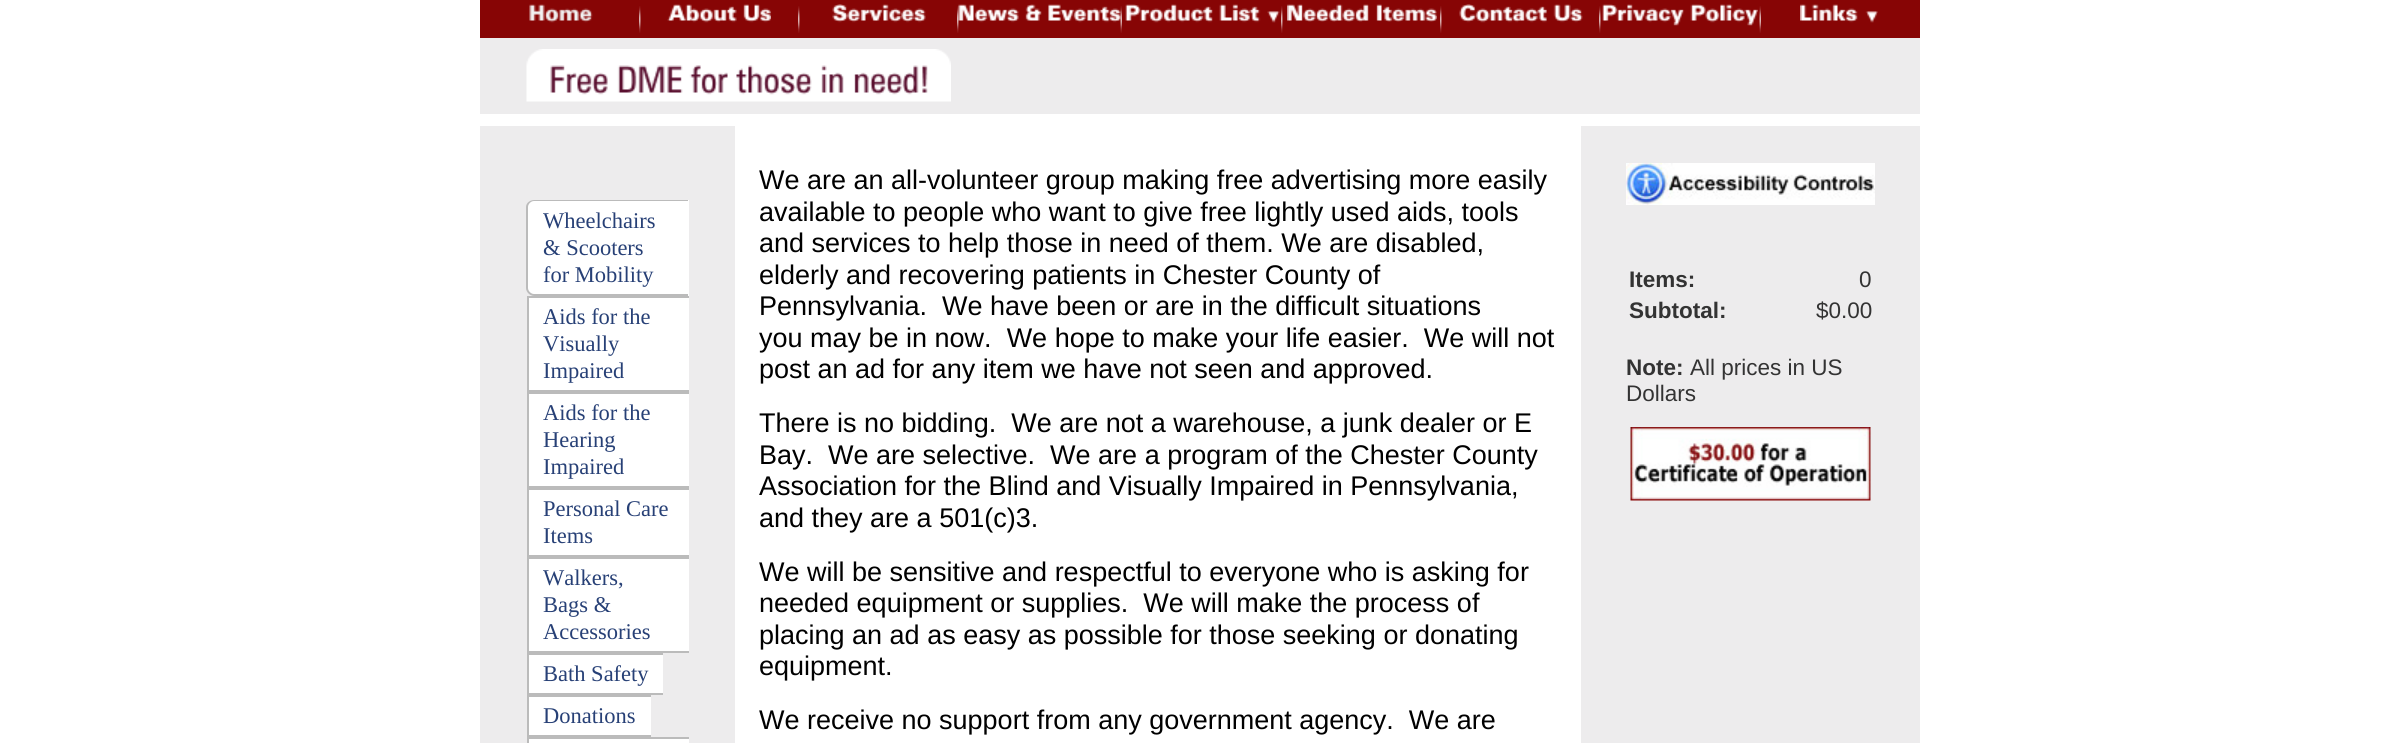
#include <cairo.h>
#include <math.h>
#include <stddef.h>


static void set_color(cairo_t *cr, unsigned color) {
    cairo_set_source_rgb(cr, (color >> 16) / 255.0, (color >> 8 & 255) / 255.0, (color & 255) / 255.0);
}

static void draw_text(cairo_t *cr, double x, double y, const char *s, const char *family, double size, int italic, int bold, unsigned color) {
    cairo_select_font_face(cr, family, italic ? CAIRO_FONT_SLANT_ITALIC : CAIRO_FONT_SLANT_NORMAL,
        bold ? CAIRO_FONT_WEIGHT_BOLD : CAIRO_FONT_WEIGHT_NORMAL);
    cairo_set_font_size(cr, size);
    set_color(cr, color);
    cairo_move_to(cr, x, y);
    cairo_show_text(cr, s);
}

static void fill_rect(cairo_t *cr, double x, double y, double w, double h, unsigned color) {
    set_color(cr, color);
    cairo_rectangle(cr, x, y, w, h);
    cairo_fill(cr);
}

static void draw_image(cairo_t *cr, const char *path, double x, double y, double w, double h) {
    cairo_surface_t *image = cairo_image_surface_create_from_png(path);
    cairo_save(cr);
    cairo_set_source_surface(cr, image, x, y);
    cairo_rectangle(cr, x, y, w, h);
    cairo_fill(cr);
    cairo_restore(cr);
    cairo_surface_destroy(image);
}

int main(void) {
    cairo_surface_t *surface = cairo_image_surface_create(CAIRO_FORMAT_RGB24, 2399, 743);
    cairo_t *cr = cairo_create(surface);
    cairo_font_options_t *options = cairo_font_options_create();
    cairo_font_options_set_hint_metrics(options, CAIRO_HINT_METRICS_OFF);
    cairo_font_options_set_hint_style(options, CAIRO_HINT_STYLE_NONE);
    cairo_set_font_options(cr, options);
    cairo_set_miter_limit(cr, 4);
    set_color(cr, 0xFFFFFF);
    cairo_paint(cr);
    fill_rect(cr, 480, 0, 1440, 38, 0x870505);
    draw_image(cr, "assets/img1.png", 529, 4, 64, 19);
    draw_image(cr, "assets/img2.png", 639, 6, 2, 27);
    draw_image(cr, "assets/img3.png", 667, 4, 104, 19);
    draw_image(cr, "assets/img2.png", 798, 6, 2, 27);
    draw_image(cr, "assets/img4.png", 832, 4, 94, 19);
    draw_image(cr, "assets/img2.png", 957, 6, 2, 27);
    draw_image(cr, "assets/img5.png", 958, 4, 163, 19);
    draw_image(cr, "assets/img6.png", 1125, 4, 155, 19);
    draw_image(cr, "assets/img7.png", 1287, 4, 150, 18);
    draw_image(cr, "assets/img8.png", 1459, 4, 124, 19);
    draw_image(cr, "assets/img9.png", 1602, 4, 156, 22);
    draw_image(cr, "assets/img10.png", 1800, 4, 78, 19);
    draw_image(cr, "assets/img11.png", 1120, 6, 2, 27);
    draw_image(cr, "assets/img2.png", 1281, 6, 2, 27);
    draw_image(cr, "assets/img2.png", 1440, 6, 2, 27);
    draw_image(cr, "assets/img2.png", 1599, 6, 2, 27);
    draw_image(cr, "assets/img12.png", 1759, 6, 2, 27);
    fill_rect(cr, 480, 38, 1440, 76, 0xEDECED);
    draw_image(cr, "assets/img13.png", 526, 49, 425, 53);
    fill_rect(cr, 480, 126, 255, 617, 0xEDECED);
    set_color(cr, 0xFFFFFF);
    cairo_new_path(cr);
    cairo_move_to(cr, 535, 200);
    cairo_line_to(cr, 689, 200);
    cairo_line_to(cr, 689, 296);
    cairo_line_to(cr, 535, 296);
    cairo_curve_to(cr, 530.5, 296, 527, 292.5, 527, 288);
    cairo_line_to(cr, 527, 208);
    cairo_curve_to(cr, 527, 203.5, 530.5, 200, 535, 200);
    cairo_close_path(cr);
    cairo_fill(cr);
    set_color(cr, 0xBBBBBB);
    cairo_set_fill_rule(cr, CAIRO_FILL_RULE_EVEN_ODD);
    cairo_new_path(cr);
    cairo_move_to(cr, 534, 200);
    cairo_line_to(cr, 688, 200);
    cairo_line_to(cr, 688, 296);
    cairo_line_to(cr, 534, 296);
    cairo_curve_to(cr, 530, 296, 526, 292, 526, 288);
    cairo_line_to(cr, 526, 207);
    cairo_curve_to(cr, 526, 203, 530, 200, 534, 200);
    cairo_close_path(cr);
    cairo_move_to(cr, 534, 201);
    cairo_line_to(cr, 688, 201);
    cairo_line_to(cr, 688, 294);
    cairo_line_to(cr, 534, 294);
    cairo_curve_to(cr, 531, 294, 528, 291, 528, 288);
    cairo_line_to(cr, 528, 207);
    cairo_curve_to(cr, 528, 204, 531, 201, 534, 201);
    cairo_close_path(cr);
    cairo_fill(cr);
    draw_text(cr, 543, 228, "Wheelchairs", "Liberation Serif", 22.5, 0, 0, 0x274076);
    draw_text(cr, 543, 255, "& Scooters", "Liberation Serif", 22.5, 0, 0, 0x274076);
    draw_text(cr, 543, 282, "for Mobility", "Liberation Serif", 22.5, 0, 0, 0x274076);
    fill_rect(cr, 529, 298, 160, 92, 0xFFFFFF);
    fill_rect(cr, 527, 296, 162, 2, 0xBBBBBB);
    fill_rect(cr, 527, 390, 162, 4, 0xBBBBBB);
    fill_rect(cr, 527, 296, 2, 96, 0xBBBBBB);
    draw_text(cr, 543, 324, "Aids for the", "Liberation Serif", 22.5, 0, 0, 0x274076);
    draw_text(cr, 543, 351, "Visually", "Liberation Serif", 22.5, 0, 0, 0x274076);
    draw_text(cr, 543, 378, "Impaired", "Liberation Serif", 22.5, 0, 0, 0x274076);
    fill_rect(cr, 529, 394, 160, 92, 0xFFFFFF);
    fill_rect(cr, 527, 486, 162, 4, 0xBBBBBB);
    fill_rect(cr, 527, 392, 2, 96, 0xBBBBBB);
    draw_text(cr, 543, 420, "Aids for the", "Liberation Serif", 22.5, 0, 0, 0x274076);
    draw_text(cr, 543, 447, "Hearing", "Liberation Serif", 22.5, 0, 0, 0x274076);
    draw_text(cr, 543, 474, "Impaired", "Liberation Serif", 22.5, 0, 0, 0x274076);
    fill_rect(cr, 529, 490, 160, 65, 0xFFFFFF);
    fill_rect(cr, 527, 555, 162, 4, 0xBBBBBB);
    fill_rect(cr, 527, 488, 2, 69, 0xBBBBBB);
    draw_text(cr, 543, 516, "Personal Care", "Liberation Serif", 22.5, 0, 0, 0x274076);
    draw_text(cr, 543, 543, "Items", "Liberation Serif", 22.5, 0, 0, 0x274076);
    fill_rect(cr, 529, 559, 160, 92, 0xFFFFFF);
    fill_rect(cr, 527, 651, 162, 2, 0xBBBBBB);
    fill_rect(cr, 527, 557, 2, 96, 0xBBBBBB);
    draw_text(cr, 543, 585, "Walkers,", "Liberation Serif", 22.5, 0, 0, 0x274076);
    draw_text(cr, 543, 612, "Bags &", "Liberation Serif", 22.5, 0, 0, 0x274076);
    draw_text(cr, 543, 639, "Accessories", "Liberation Serif", 22.5, 0, 0, 0x274076);
    fill_rect(cr, 529, 655, 134, 38, 0xFFFFFF);
    fill_rect(cr, 527, 653, 136, 2, 0xBBBBBB);
    fill_rect(cr, 527, 693, 136, 2, 0xBBBBBB);
    fill_rect(cr, 527, 653, 2, 42, 0xBBBBBB);
    draw_text(cr, 543, 681, "Bath Safety", "Liberation Serif", 22.5, 0, 0, 0x274076);
    fill_rect(cr, 529, 697, 122, 38, 0xFFFFFF);
    fill_rect(cr, 527, 695, 124, 2, 0xBBBBBB);
    fill_rect(cr, 527, 735, 124, 2, 0xBBBBBB);
    fill_rect(cr, 527, 695, 2, 42, 0xBBBBBB);
    draw_text(cr, 543, 723, "Donations", "Liberation Serif", 22.5, 0, 0, 0x274076);
    fill_rect(cr, 527, 739, 162, 4, 0xFFFFFF);
    fill_rect(cr, 527, 737, 162, 2, 0xBBBBBB);
    fill_rect(cr, 527, 737, 2, 6, 0xBBBBBB);
    draw_text(cr, 759, 189, "We are an all-volunteer group making free advertising more easily", "Liberation Sans", 27, 0, 0, 0x000000);
    draw_text(cr, 759, 221, "available to people who want to give free lightly used aids, tools", "Liberation Sans", 27, 0, 0, 0x000000);
    draw_text(cr, 759, 252, "and services to help those in need of them. We are disabled,", "Liberation Sans", 27, 0, 0, 0x000000);
    draw_text(cr, 759, 284, "elderly and recovering patients in Chester County of", "Liberation Sans", 27, 0, 0, 0x000000);
    draw_text(cr, 759, 315, "Pennsylvania.  We have been or are in the difficult situations", "Liberation Sans", 27, 0, 0, 0x000000);
    draw_text(cr, 759, 347, "you may be in now.  We hope to make your life easier.  We will not", "Liberation Sans", 27, 0, 0, 0x000000);
    draw_text(cr, 759, 378, "post an ad for any item we have not seen and approved.", "Liberation Sans", 27, 0, 0, 0x000000);
    draw_text(cr, 759, 432, "There is no bidding.  We are not a warehouse, a junk dealer or E", "Liberation Sans", 27, 0, 0, 0x000000);
    draw_text(cr, 759, 464, "Bay.  We are selective.  We are a program of the Chester County", "Liberation Sans", 27, 0, 0, 0x000000);
    draw_text(cr, 759, 495, "Association for the Blind and Visually Impaired in Pennsylvania,", "Liberation Sans", 27, 0, 0, 0x000000);
    draw_text(cr, 759, 527, "and they are a 501(c)3.", "Liberation Sans", 27, 0, 0, 0x000000);
    draw_text(cr, 759, 581, "We will be sensitive and respectful to everyone who is asking for", "Liberation Sans", 27, 0, 0, 0x000000);
    draw_text(cr, 759, 612, "needed equipment or supplies.  We will make the process of", "Liberation Sans", 27, 0, 0, 0x000000);
    draw_text(cr, 759, 644, "placing an ad as easy as possible for those seeking or donating", "Liberation Sans", 27, 0, 0, 0x000000);
    draw_text(cr, 759, 675, "equipment.", "Liberation Sans", 27, 0, 0, 0x000000);
    draw_text(cr, 759, 729, "We receive no support from any government agency.  We are", "Liberation Sans", 27, 0, 0, 0x000000);
    fill_rect(cr, 1581, 126, 339, 617, 0xEDECED);
    draw_image(cr, "assets/img14.png", 1626, 163, 249, 42);
    draw_text(cr, 1629, 287, "Items:", "Liberation Sans", 22.5, 0, 1, 0x333333);
    draw_text(cr, 1859, 287, "0", "Liberation Sans", 22.5, 0, 0, 0x333333);
    draw_text(cr, 1629, 318, "Subtotal:", "Liberation Sans", 22.5, 0, 1, 0x333333);
    draw_text(cr, 1816, 318, "$0.00", "Liberation Sans", 22.5, 0, 0, 0x333333);
    draw_text(cr, 1626, 375, "Note:", "Liberation Sans", 22.5, 0, 1, 0x333333);
    draw_text(cr, 1690, 375, "All prices in US", "Liberation Sans", 22.5, 0, 0, 0x333333);
    draw_text(cr, 1626, 401, "Dollars", "Liberation Sans", 22.5, 0, 0, 0x333333);
    draw_image(cr, "assets/img15.png", 1630, 427, 241, 74);
    cairo_surface_write_to_png(surface, "output.png");
    cairo_font_options_destroy(options);
    cairo_destroy(cr);
    cairo_surface_destroy(surface);
    return 0;
}
